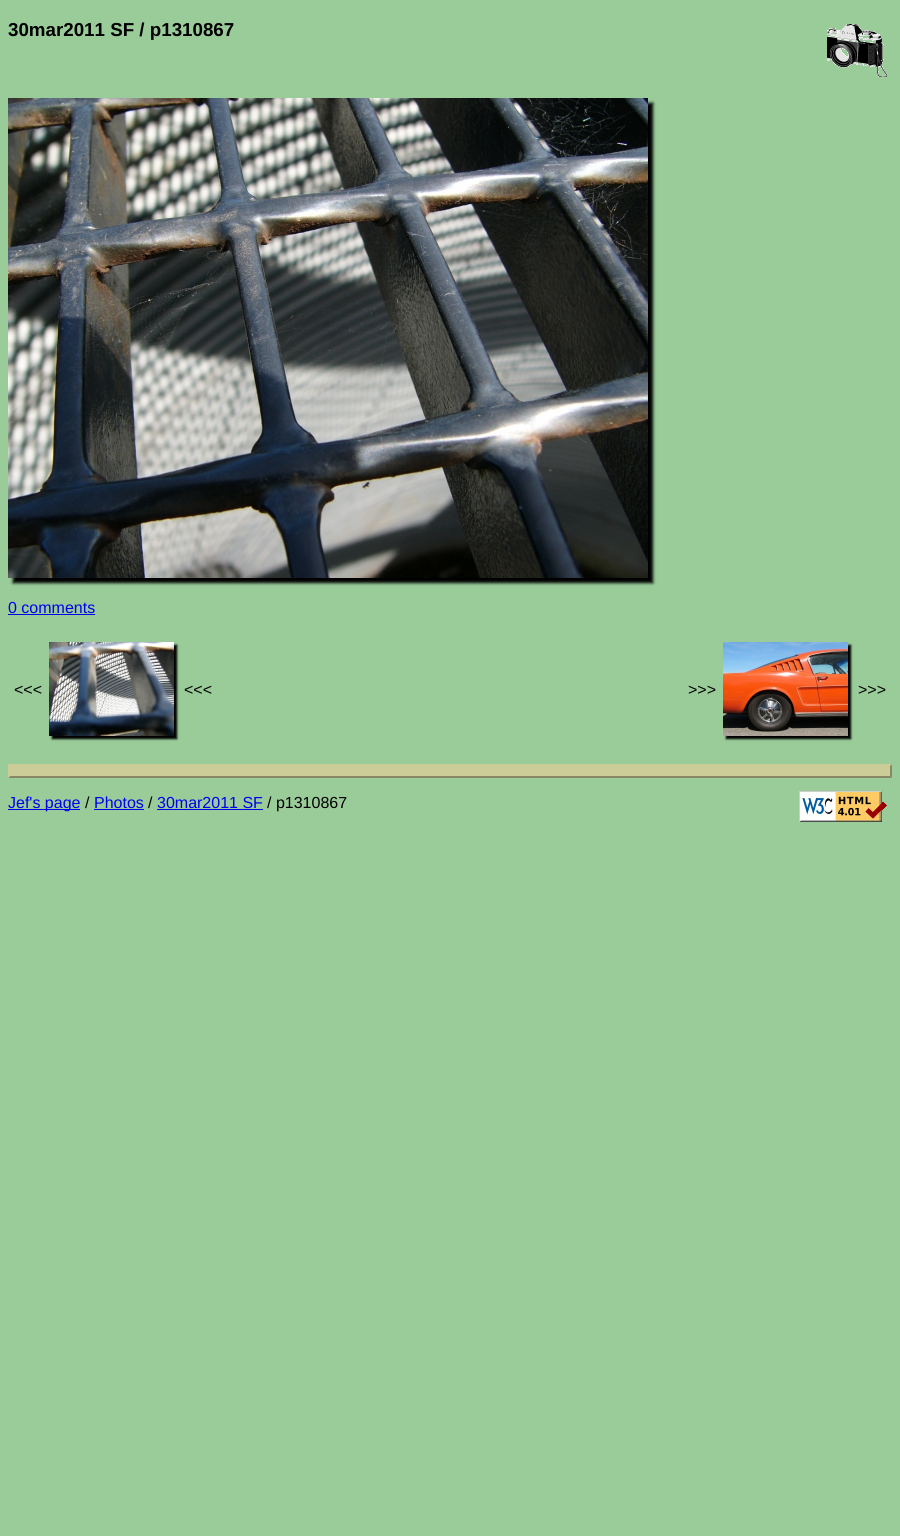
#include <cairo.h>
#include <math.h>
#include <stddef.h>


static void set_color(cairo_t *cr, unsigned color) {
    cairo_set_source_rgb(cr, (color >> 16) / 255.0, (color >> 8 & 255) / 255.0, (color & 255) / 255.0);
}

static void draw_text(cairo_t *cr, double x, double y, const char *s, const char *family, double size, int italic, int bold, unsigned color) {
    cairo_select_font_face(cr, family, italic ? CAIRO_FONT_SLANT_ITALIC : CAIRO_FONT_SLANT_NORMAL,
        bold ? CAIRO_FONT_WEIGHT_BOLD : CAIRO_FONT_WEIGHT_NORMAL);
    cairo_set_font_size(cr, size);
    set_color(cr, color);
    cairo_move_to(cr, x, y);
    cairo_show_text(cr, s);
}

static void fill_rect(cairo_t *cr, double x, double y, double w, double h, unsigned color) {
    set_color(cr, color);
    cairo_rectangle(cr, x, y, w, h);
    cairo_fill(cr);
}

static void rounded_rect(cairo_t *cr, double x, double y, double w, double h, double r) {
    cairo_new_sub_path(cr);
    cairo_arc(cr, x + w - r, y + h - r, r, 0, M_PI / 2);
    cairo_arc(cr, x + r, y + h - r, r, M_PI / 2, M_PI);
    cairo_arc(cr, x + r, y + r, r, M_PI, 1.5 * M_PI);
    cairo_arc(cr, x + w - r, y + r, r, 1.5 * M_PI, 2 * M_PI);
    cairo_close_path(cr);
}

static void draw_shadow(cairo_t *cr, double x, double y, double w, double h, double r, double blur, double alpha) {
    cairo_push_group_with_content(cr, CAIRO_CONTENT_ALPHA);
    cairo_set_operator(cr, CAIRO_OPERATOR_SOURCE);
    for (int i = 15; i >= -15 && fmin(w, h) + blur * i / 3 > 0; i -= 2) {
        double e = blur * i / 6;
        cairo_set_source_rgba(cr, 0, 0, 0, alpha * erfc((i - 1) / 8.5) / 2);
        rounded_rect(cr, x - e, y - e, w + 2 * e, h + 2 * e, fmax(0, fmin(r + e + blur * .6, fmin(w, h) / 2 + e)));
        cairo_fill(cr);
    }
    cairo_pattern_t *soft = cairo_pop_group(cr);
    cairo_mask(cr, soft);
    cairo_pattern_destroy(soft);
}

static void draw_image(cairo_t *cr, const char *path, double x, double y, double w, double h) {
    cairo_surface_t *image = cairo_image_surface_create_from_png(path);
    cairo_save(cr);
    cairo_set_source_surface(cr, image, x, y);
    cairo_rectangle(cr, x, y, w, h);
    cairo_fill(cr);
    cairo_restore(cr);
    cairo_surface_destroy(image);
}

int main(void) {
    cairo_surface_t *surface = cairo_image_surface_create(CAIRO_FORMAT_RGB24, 900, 1536);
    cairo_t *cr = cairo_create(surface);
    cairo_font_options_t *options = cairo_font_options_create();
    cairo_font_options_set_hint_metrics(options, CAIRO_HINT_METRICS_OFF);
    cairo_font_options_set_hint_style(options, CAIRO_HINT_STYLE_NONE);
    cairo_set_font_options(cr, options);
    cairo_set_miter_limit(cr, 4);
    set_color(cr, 0x99CC99);
    cairo_paint(cr);
    draw_text(cr, 8, 36, "30mar2011 SF / p1310867", "Liberation Sans", 18.75, 0, 1, 0x000000);
    draw_image(cr, "assets/img1.png", 827, 24, 60, 53);
    set_color(cr, 0x000000);
    draw_shadow(cr, 13, 103, 640, 480, 0, 1.5, 1);
    draw_image(cr, "assets/img2.png", 8, 98, 640, 480);
    draw_text(cr, 8, 613, "0 comments", "Liberation Sans", 16, 0, 0, 0x0000EE);
    fill_rect(cr, 8, 614, 87, 1, 0x0000EE);
    draw_text(cr, 14, 695, "<<<", "Liberation Sans", 16, 0, 0, 0x000000);
    set_color(cr, 0x000000);
    draw_shadow(cr, 52, 645, 125, 94, 0, 1, 1);
    draw_image(cr, "assets/img3.png", 49, 642, 125, 94);
    draw_text(cr, 184, 695, "<<<", "Liberation Sans", 16, 0, 0, 0x000000);
    draw_text(cr, 688, 695, ">>>", "Liberation Sans", 16, 0, 0, 0x000000);
    set_color(cr, 0x000000);
    draw_shadow(cr, 726, 645, 125, 94, 0, 1, 1);
    draw_image(cr, "assets/img4.png", 723, 642, 125, 94);
    draw_text(cr, 858, 695, ">>>", "Liberation Sans", 16, 0, 0, 0x000000);
    fill_rect(cr, 8, 764, 884, 14, 0xCCCC99);
    set_color(cr, 0x888866);
    cairo_new_path(cr);
    cairo_move_to(cr, 892, 764);
    cairo_line_to(cr, 892, 778);
    cairo_line_to(cr, 890, 776);
    cairo_line_to(cr, 890, 766);
    cairo_close_path(cr);
    cairo_fill(cr);
    cairo_new_path(cr);
    cairo_move_to(cr, 892, 778);
    cairo_line_to(cr, 8, 778);
    cairo_line_to(cr, 10, 776);
    cairo_line_to(cr, 890, 776);
    cairo_close_path(cr);
    cairo_fill(cr);
    set_color(cr, 0xCCCC99);
    cairo_new_path(cr);
    cairo_move_to(cr, 8, 778);
    cairo_line_to(cr, 8, 764);
    cairo_line_to(cr, 10, 766);
    cairo_line_to(cr, 10, 776);
    cairo_close_path(cr);
    cairo_fill(cr);
    fill_rect(cr, 8, 809, 72, 1, 0x0000EE);
    draw_text(cr, 8, 808, "Jef's page", "Liberation Sans", 16, 0, 0, 0x0000EE);
    draw_text(cr, 85, 808, "/", "Liberation Sans", 16, 0, 0, 0x000000);
    draw_text(cr, 94, 808, "Photos", "Liberation Sans", 16, 0, 0, 0x0000EE);
    fill_rect(cr, 94, 809, 50, 1, 0x0000EE);
    draw_text(cr, 148, 808, "/", "Liberation Sans", 16, 0, 0, 0x000000);
    draw_text(cr, 157, 808, "30mar2011 SF", "Liberation Sans", 16, 0, 0, 0x0000EE);
    fill_rect(cr, 157, 809, 106, 1, 0x0000EE);
    draw_text(cr, 267, 808, "/ p1310867", "Liberation Sans", 16, 0, 0, 0x000000);
    draw_image(cr, "assets/img5.png", 799, 791, 88, 31);
    cairo_surface_write_to_png(surface, "output.png");
    cairo_font_options_destroy(options);
    cairo_destroy(cr);
    cairo_surface_destroy(surface);
    return 0;
}
